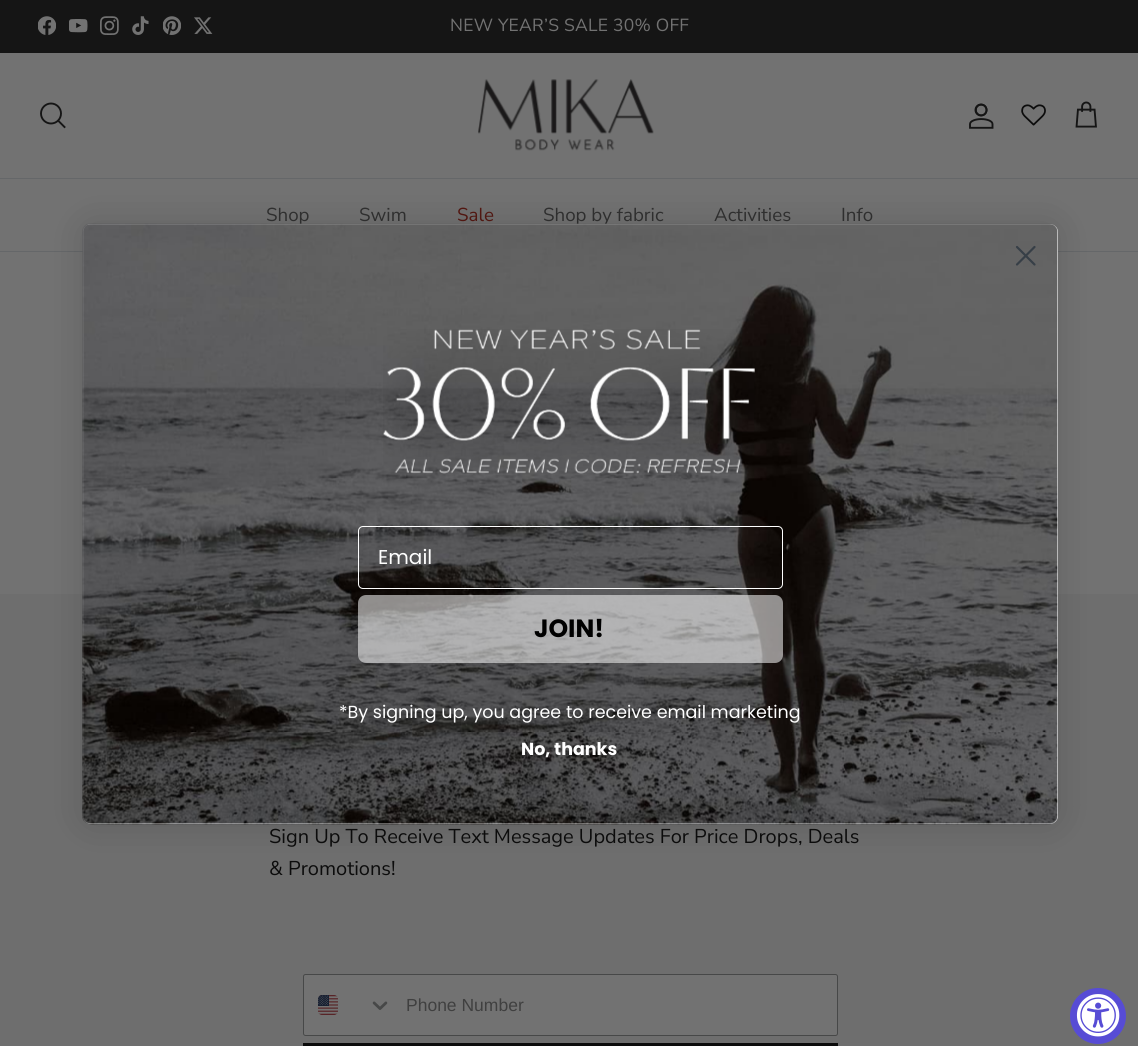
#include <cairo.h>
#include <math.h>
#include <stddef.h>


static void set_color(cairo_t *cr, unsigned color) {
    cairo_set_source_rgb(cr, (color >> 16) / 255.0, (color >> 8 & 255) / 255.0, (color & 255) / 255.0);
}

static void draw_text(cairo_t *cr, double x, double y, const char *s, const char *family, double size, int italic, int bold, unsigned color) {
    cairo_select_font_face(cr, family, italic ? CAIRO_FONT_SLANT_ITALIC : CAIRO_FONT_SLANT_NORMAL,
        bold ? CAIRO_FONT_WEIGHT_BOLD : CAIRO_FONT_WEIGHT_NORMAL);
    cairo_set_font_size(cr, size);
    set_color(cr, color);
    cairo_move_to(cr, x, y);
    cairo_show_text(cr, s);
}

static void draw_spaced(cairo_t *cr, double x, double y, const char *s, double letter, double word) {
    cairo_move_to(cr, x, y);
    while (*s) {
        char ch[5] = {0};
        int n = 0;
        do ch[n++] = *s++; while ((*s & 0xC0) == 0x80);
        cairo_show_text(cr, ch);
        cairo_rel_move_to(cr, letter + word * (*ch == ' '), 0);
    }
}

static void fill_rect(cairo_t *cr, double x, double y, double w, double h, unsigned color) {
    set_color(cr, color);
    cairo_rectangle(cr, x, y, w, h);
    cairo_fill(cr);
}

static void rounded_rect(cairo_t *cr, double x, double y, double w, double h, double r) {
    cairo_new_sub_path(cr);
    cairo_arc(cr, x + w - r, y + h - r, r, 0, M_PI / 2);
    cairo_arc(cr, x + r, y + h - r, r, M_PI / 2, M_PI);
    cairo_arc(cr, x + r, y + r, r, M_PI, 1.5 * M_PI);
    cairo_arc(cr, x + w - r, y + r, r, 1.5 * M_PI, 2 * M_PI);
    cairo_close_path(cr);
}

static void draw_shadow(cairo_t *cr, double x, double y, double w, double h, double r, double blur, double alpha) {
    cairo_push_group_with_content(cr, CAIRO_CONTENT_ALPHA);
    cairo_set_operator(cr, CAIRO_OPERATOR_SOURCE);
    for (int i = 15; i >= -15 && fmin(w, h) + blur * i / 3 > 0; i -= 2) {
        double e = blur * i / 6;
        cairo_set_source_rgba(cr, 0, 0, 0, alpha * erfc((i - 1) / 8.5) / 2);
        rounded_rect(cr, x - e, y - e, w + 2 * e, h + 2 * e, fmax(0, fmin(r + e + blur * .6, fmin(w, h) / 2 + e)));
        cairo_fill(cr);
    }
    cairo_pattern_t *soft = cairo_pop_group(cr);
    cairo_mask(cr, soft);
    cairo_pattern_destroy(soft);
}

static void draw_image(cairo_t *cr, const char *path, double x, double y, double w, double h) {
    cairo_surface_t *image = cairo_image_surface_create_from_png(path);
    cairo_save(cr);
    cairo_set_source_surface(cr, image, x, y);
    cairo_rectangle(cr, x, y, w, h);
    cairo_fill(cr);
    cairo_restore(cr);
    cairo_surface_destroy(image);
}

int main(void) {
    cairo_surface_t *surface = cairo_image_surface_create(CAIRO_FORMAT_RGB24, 1138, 1046);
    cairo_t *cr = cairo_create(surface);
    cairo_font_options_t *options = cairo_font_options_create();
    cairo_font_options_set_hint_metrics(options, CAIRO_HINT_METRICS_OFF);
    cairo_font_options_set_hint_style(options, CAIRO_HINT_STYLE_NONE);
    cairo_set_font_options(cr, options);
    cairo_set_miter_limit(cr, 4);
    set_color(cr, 0x727272);
    cairo_paint(cr);
    fill_rect(cr, 0, 0, 1138, 53, 0x151515);
    draw_image(cr, "assets/img1.png", 38, 16, 18, 19);
    draw_image(cr, "assets/img2.png", 69, 19, 19, 14);
    draw_image(cr, "assets/img3.png", 100, 16, 19, 19);
    draw_image(cr, "assets/img4.png", 132, 16, 17, 19);
    draw_image(cr, "assets/img5.png", 163, 16, 18, 19);
    draw_image(cr, "assets/img6.png", 194, 17, 19, 17);
    cairo_select_font_face(cr, "Nunito Sans", CAIRO_FONT_SLANT_NORMAL, CAIRO_FONT_WEIGHT_NORMAL);
    cairo_set_font_size(cr, 17.5);
    set_color(cr, 0x727272);
    draw_spaced(cr, 450, 31, "NEW YEAR’S SALE 30% OFF", 0.25, 0);
    fill_rect(cr, 0, 178, 1138, 1, 0x656769);
    cairo_new_path(cr);
    cairo_arc(cr, 51, 113.5, 10, 0, 2 * M_PI);
    set_color(cr, 0x151515);
    cairo_set_line_width(cr, 1.9);
    cairo_stroke(cr);
    cairo_new_path(cr);
    cairo_move_to(cr, 58.5, 121);
    cairo_line_to(cr, 64.5, 127);
    cairo_set_line_cap(cr, CAIRO_LINE_CAP_SQUARE);
    cairo_stroke(cr);
    draw_image(cr, "assets/img7.png", 478, 79, 176, 72);
    draw_image(cr, "assets/img8.png", 969, 103, 25, 26);
    draw_image(cr, "assets/img9.png", 1021, 104, 25, 22);
    draw_image(cr, "assets/img10.png", 1075, 101, 22, 27);
    fill_rect(cr, 0, 251, 1138, 1, 0x656769);
    draw_text(cr, 266, 221, "Shop", "Nunito Sans", 18.75, 0, 0, 0x313131);
    draw_text(cr, 359, 221, "Swim", "Nunito Sans", 18.75, 0, 0, 0x313131);
    draw_text(cr, 457, 221, "Sale", "Nunito Sans", 18.75, 0, 0, 0x551812);
    draw_text(cr, 543, 221, "Shop by fabric", "Nunito Sans", 18.75, 0, 0, 0x313131);
    draw_text(cr, 714, 221, "Activities", "Nunito Sans", 18.75, 0, 0, 0x313131);
    draw_text(cr, 841, 221, "Info", "Nunito Sans", 18.75, 0, 0, 0x313131);
    fill_rect(cr, 0, 594, 1138, 452, 0x6E6E6E);
    set_color(cr, 0x000000);
    draw_shadow(cr, 83, 224, 975, 600, 8, 19, 0.15);
    set_color(cr, 0xFFFFFF);
    rounded_rect(cr, 83, 224, 975, 600, 8);
    cairo_fill(cr);
    draw_image(cr, "assets/img11.png", 82, 223, 976, 602);
    cairo_new_path(cr);
    cairo_move_to(cr, 1017, 247);
    cairo_line_to(cr, 1034.5, 264.5);
    cairo_move_to(cr, 1017, 264.5);
    cairo_line_to(cr, 1034.5, 247);
    cairo_close_path(cr);
    set_color(cr, 0x373F47);
    cairo_set_line_width(cr, 2.2);
    cairo_set_line_cap(cr, CAIRO_LINE_CAP_ROUND);
    cairo_set_line_join(cr, CAIRO_LINE_JOIN_ROUND);
    cairo_stroke(cr);
    draw_image(cr, "assets/img12.png", 383, 329, 372, 145);
    rounded_rect(cr, 358.5, 526.5, 424, 62, 4.5);
    set_color(cr, 0xFFFFFF);
    cairo_set_line_width(cr, 1);
    cairo_set_line_cap(cr, CAIRO_LINE_CAP_BUTT);
    cairo_set_line_join(cr, CAIRO_LINE_JOIN_MITER);
    cairo_stroke(cr);
    draw_text(cr, 378, 564, "Email", "Poppins", 20, 0, 0, 0xFFFFFF);
    cairo_set_source_rgba(cr, 1, 1, 1, 0.54);
    rounded_rect(cr, 358, 595, 425, 68, 8);
    cairo_fill(cr);
    draw_text(cr, 534, 637, "JOIN!", "Poppins", 25, 0, 1, 0x000000);
    draw_text(cr, 339, 718, "*By signing up, you agree to receive email marketing", "Poppins", 17.5, 0, 0, 0xFFFFFF);
    draw_text(cr, 521, 755, "No, thanks", "Poppins", 17.5, 0, 1, 0xFFFFFF);
    draw_text(cr, 269, 843, "Sign Up To Receive Text Message Updates For Price Drops, Deals", "Nunito Sans", 20, 0, 0, 0x0C0C0C);
    draw_text(cr, 269, 875, "& Promotions!", "Nunito Sans", 20, 0, 0, 0x0C0C0C);
    set_color(cr, 0x727272);
    rounded_rect(cr, 303.5, 974.5, 534, 61, 2);
    cairo_fill_preserve(cr);
    set_color(cr, 0x474848);
    cairo_stroke(cr);
    draw_image(cr, "assets/img13.png", 318, 995, 20, 20);
    draw_image(cr, "assets/img14.png", 372, 1001, 16, 9);
    draw_text(cr, 406, 1011, "Phone Number", "Liberation Sans", 17.5, 0, 0, 0x404040);
    fill_rect(cr, 303, 1043, 535, 3, 0x0C0C0C);
    set_color(cr, 0x574CD5);
    cairo_new_path(cr);
    cairo_arc(cr, 1098, 1016, 28, 0, 2 * M_PI);
    cairo_fill(cr);
    draw_image(cr, "assets/img15.png", 1076, 994, 44, 43);
    cairo_surface_write_to_png(surface, "output.png");
    cairo_font_options_destroy(options);
    cairo_destroy(cr);
    cairo_surface_destroy(surface);
    return 0;
}
